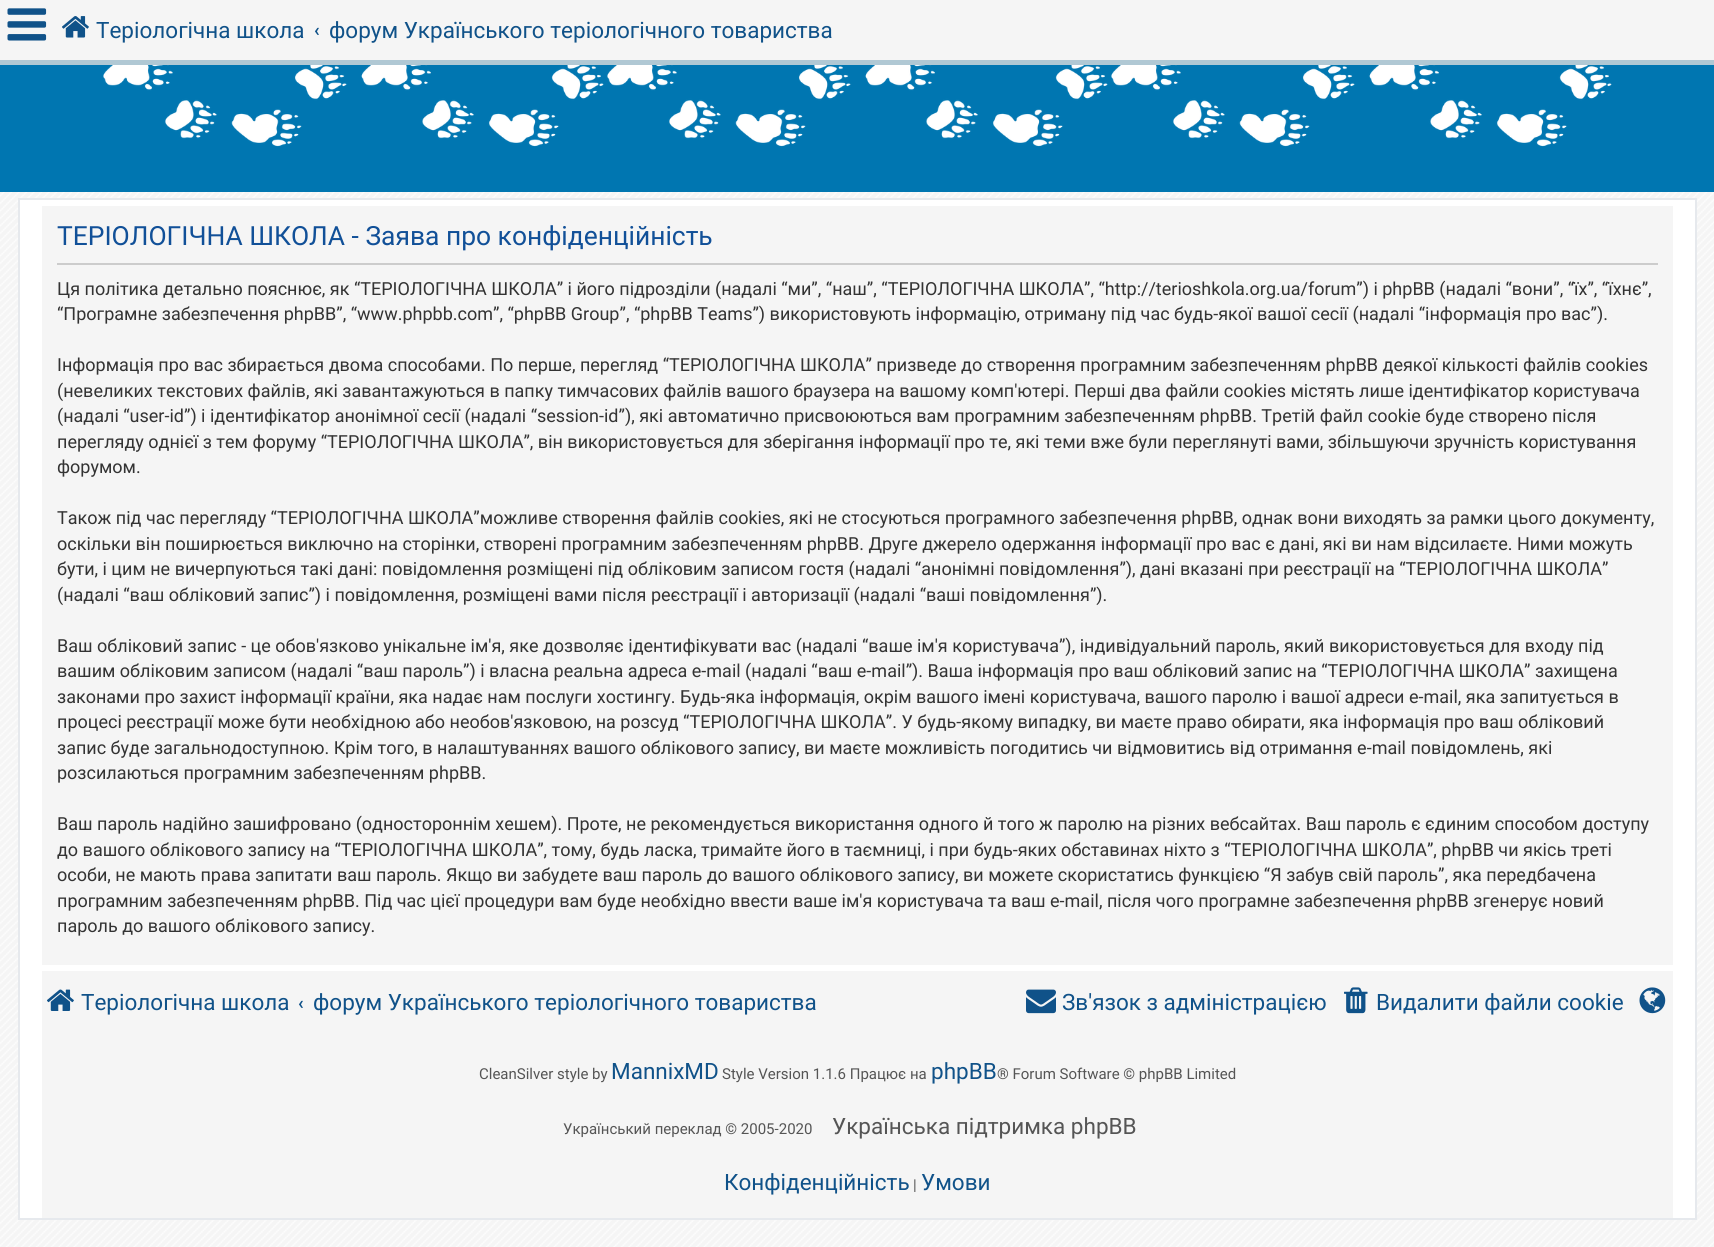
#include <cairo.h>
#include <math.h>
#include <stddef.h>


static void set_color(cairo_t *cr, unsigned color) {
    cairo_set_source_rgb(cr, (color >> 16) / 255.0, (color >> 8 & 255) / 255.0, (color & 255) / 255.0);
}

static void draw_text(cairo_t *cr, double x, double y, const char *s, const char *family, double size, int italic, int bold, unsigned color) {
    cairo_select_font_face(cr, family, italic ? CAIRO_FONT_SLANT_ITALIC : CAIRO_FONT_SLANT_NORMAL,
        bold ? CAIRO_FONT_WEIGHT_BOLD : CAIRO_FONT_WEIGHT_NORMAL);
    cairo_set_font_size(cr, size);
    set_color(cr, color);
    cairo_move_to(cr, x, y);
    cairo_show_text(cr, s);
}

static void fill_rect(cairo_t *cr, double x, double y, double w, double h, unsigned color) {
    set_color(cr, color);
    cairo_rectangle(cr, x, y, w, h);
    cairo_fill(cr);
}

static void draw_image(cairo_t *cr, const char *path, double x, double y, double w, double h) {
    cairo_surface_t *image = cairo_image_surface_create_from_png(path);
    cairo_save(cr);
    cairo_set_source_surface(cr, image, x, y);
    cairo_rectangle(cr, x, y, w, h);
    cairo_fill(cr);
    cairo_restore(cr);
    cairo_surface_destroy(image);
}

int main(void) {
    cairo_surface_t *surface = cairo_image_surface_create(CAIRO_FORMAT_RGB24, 1714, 1247);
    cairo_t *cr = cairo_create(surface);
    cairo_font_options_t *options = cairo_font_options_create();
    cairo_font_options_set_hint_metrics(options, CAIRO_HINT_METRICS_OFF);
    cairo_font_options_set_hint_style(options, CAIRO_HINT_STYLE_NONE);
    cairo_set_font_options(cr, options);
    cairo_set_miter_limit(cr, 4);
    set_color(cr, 0xFFFFFF);
    cairo_paint(cr);
    draw_image(cr, "assets/img1.png", 0, 192, 1714, 1055);
    fill_rect(cr, 0, 0, 1714, 60, 0xF5F5F5);
    fill_rect(cr, 0, 60, 1714, 5, 0xB0C8D4);
    draw_image(cr, "assets/img2.png", 7, 8, 40, 33);
    draw_image(cr, "assets/img3.png", 62, 16, 27, 22);
    draw_text(cr, 96, 38, "Теріологічна школа", "Roboto", 22.5, 0, 0, 0x105289);
    draw_text(cr, 314, 36, "‹", "Roboto", 18, 0, 1, 0x105289);
    draw_text(cr, 329, 38, "форум Українського теріологічного товариства", "Roboto", 22.5, 0, 0, 0x105289);
    fill_rect(cr, 0, 65, 1714, 127, 0x0076B1);
    draw_image(cr, "assets/img4.png", 103, 65, 1509, 82);
    set_color(cr, 0xFFFFFF);
    cairo_rectangle(cr, 19, 199, 1677, 1020);
    cairo_fill_preserve(cr);
    set_color(cr, 0xE6E9ED);
    cairo_stroke(cr);
    fill_rect(cr, 42, 206, 1631, 759, 0xF5F5F5);
    fill_rect(cr, 57, 263, 1601, 2, 0xCCCCCC);
    draw_text(cr, 57, 245, "ТЕРІОЛОГІЧНА ШКОЛА - Заява про конфіденційність", "Roboto", 26.4, 0, 0, 0x115098);
    draw_text(cr, 57, 295, "Ця політика детально пояснює, як “ТЕРІОЛОГІЧНА ШКОЛА” і його підрозділи (надалі “ми”, “наш”, “ТЕРІОЛОГІЧНА ШКОЛА”, “http://terioshkola.org.ua/forum”) і phpBB (надалі “вони”, “їх”, “їхнє”,", "Roboto", 18, 0, 0, 0x333333);
    draw_text(cr, 57, 320, "“Програмне забезпечення phpBB”, “www.phpbb.com”, “phpBB Group”, “phpBB Teams”) використовують інформацію, отриману під час будь-якої вашої сесії (надалі “інформація про вас”).", "Roboto", 18, 0, 0, 0x333333);
    draw_text(cr, 57, 371, "Інформація про вас збирається двома способами. По перше, перегляд “ТЕРІОЛОГІЧНА ШКОЛА” призведе до створення програмним забезпеченням phpBB деякої кількості файлів cookies", "Roboto", 18, 0, 0, 0x333333);
    draw_text(cr, 57, 397, "(невеликих текстових файлів, які завантажуються в папку тимчасових файлів вашого браузера на вашому комп'ютері. Перші два файли cookies містять лише ідентифікатор користувача", "Roboto", 18, 0, 0, 0x333333);
    draw_text(cr, 57, 422, "(надалі “user-id”) і ідентифікатор анонімної сесії (надалі “session-id”), які автоматично присвоюються вам програмним забезпеченням phpBB. Третій файл cookie буде створено після", "Roboto", 18, 0, 0, 0x333333);
    draw_text(cr, 57, 448, "перегляду однієї з тем форуму “ТЕРІОЛОГІЧНА ШКОЛА”, він використовується для зберігання інформації про те, які теми вже були переглянуті вами, збільшуючи зручність користування", "Roboto", 18, 0, 0, 0x333333);
    draw_text(cr, 57, 473, "форумом.", "Roboto", 18, 0, 0, 0x333333);
    draw_text(cr, 57, 524, "Також під час перегляду “ТЕРІОЛОГІЧНА ШКОЛА”можливе створення файлів cookies, які не стосуються програмного забезпечення phpBB, однак вони виходять за рамки цього документу,", "Roboto", 18, 0, 0, 0x333333);
    draw_text(cr, 57, 550, "оскільки він поширюється виключно на сторінки, створені програмним забезпеченням phpBB. Друге джерело одержання інформації про вас є дані, які ви нам відсилаєте. Ними можуть", "Roboto", 18, 0, 0, 0x333333);
    draw_text(cr, 57, 575, "бути, і цим не вичерпуються такі дані: повідомлення розміщені під обліковим записом гостя (надалі “анонімні повідомлення”), дані вказані при реєстрації на “ТЕРІОЛОГІЧНА ШКОЛА”", "Roboto", 18, 0, 0, 0x333333);
    draw_text(cr, 57, 601, "(надалі “ваш обліковий запис”) і повідомлення, розміщені вами після реєстрації і авторизації (надалі “ваші повідомлення”).", "Roboto", 18, 0, 0, 0x333333);
    draw_text(cr, 57, 652, "Ваш обліковий запис - це обов'язково унікальне ім'я, яке дозволяє ідентифікувати вас (надалі “ваше ім'я користувача”), індивідуальний пароль, який використовується для входу під", "Roboto", 18, 0, 0, 0x333333);
    draw_text(cr, 57, 677, "вашим обліковим записом (надалі “ваш пароль”) і власна реальна адреса e-mail (надалі “ваш e-mail”). Ваша інформація про ваш обліковий запис на “ТЕРІОЛОГІЧНА ШКОЛА” захищена", "Roboto", 18, 0, 0, 0x333333);
    draw_text(cr, 57, 703, "законами про захист інформації країни, яка надає нам послуги хостингу. Будь-яка інформація, окрім вашого імені користувача, вашого паролю і вашої адреси e-mail, яка запитується в", "Roboto", 18, 0, 0, 0x333333);
    draw_text(cr, 57, 728, "процесі реєстрації може бути необхідною або необов'язковою, на розсуд “ТЕРІОЛОГІЧНА ШКОЛА”. У будь-якому випадку, ви маєте право обирати, яка інформація про ваш обліковий", "Roboto", 18, 0, 0, 0x333333);
    draw_text(cr, 57, 754, "запис буде загальнодоступною. Крім того, в налаштуваннях вашого облікового запису, ви маєте можливість погодитись чи відмовитись від отримання e-mail повідомлень, які", "Roboto", 18, 0, 0, 0x333333);
    draw_text(cr, 57, 779, "розсилаються програмним забезпеченням phpBB.", "Roboto", 18, 0, 0, 0x333333);
    draw_text(cr, 57, 830, "Ваш пароль надійно зашифровано (одностороннім хешем). Проте, не рекомендується використання одного й того ж паролю на різних вебсайтах. Ваш пароль є єдиним способом доступу", "Roboto", 18, 0, 0, 0x333333);
    draw_text(cr, 57, 856, "до вашого облікового запису на “ТЕРІОЛОГІЧНА ШКОЛА”, тому, будь ласка, тримайте його в таємниці, і при будь-яких обставинах ніхто з “ТЕРІОЛОГІЧНА ШКОЛА”, phpBB чи якісь треті", "Roboto", 18, 0, 0, 0x333333);
    draw_text(cr, 57, 881, "особи, не мають права запитати ваш пароль. Якщо ви забудете ваш пароль до вашого облікового запису, ви можете скористатись функцією “Я забув свій пароль”, яка передбачена", "Roboto", 18, 0, 0, 0x333333);
    draw_text(cr, 57, 907, "програмним забезпеченням phpBB. Під час цієї процедури вам буде необхідно ввести ваше ім'я користувача та ваш e-mail, після чого програмне забезпечення phpBB згенерує новий", "Roboto", 18, 0, 0, 0x333333);
    draw_text(cr, 57, 932, "пароль до вашого облікового запису.", "Roboto", 18, 0, 0, 0x333333);
    fill_rect(cr, 42, 971, 1631, 247, 0xF5F5F5);
    draw_image(cr, "assets/img5.png", 47, 989, 27, 22);
    draw_text(cr, 81, 1010, "Теріологічна школа", "Roboto", 22.5, 0, 0, 0x105289);
    draw_text(cr, 298, 1009, "‹", "Roboto", 18, 0, 1, 0x105289);
    draw_text(cr, 313, 1010, "форум Українського теріологічного товариства", "Roboto", 22.5, 0, 0, 0x105289);
    draw_image(cr, "assets/img6.png", 1026, 989, 30, 25);
    draw_text(cr, 1062, 1010, "Зв'язок з адміністрацією", "Roboto", 22.5, 0, 0, 0x105289);
    draw_image(cr, "assets/img7.png", 1344, 987, 24, 27);
    draw_text(cr, 1376, 1010, "Видалити файли cookie", "Roboto", 22.5, 0, 0, 0x105289);
    draw_image(cr, "assets/img8.png", 1639, 987, 27, 27);
    draw_text(cr, 479, 1079, "CleanSilver style by", "Roboto", 15, 0, 0, 0x555555);
    draw_text(cr, 611, 1079, "MannixMD", "Roboto", 22.5, 0, 0, 0x105289);
    draw_text(cr, 722, 1079, "Style Version 1.1.6 Працює на", "Roboto", 15, 0, 0, 0x555555);
    draw_text(cr, 931, 1079, "phpBB", "Roboto", 22.5, 0, 0, 0x105289);
    draw_text(cr, 997, 1079, "® Forum Software © phpBB Limited", "Roboto", 15, 0, 0, 0x555555);
    draw_text(cr, 563, 1134, "Український переклад © 2005-2020", "Roboto", 15, 0, 0, 0x555555);
    draw_text(cr, 832, 1134, "Українська підтримка phpBB", "Roboto", 22.5, 0, 0, 0x555555);
    draw_text(cr, 724, 1190, "Конфіденційність", "Roboto", 22.5, 0, 0, 0x105289);
    draw_text(cr, 913, 1190, "|", "Roboto", 15, 0, 0, 0x555555);
    draw_text(cr, 921, 1190, "Умови", "Roboto", 22.5, 0, 0, 0x105289);
    cairo_surface_write_to_png(surface, "output.png");
    cairo_font_options_destroy(options);
    cairo_destroy(cr);
    cairo_surface_destroy(surface);
    return 0;
}
